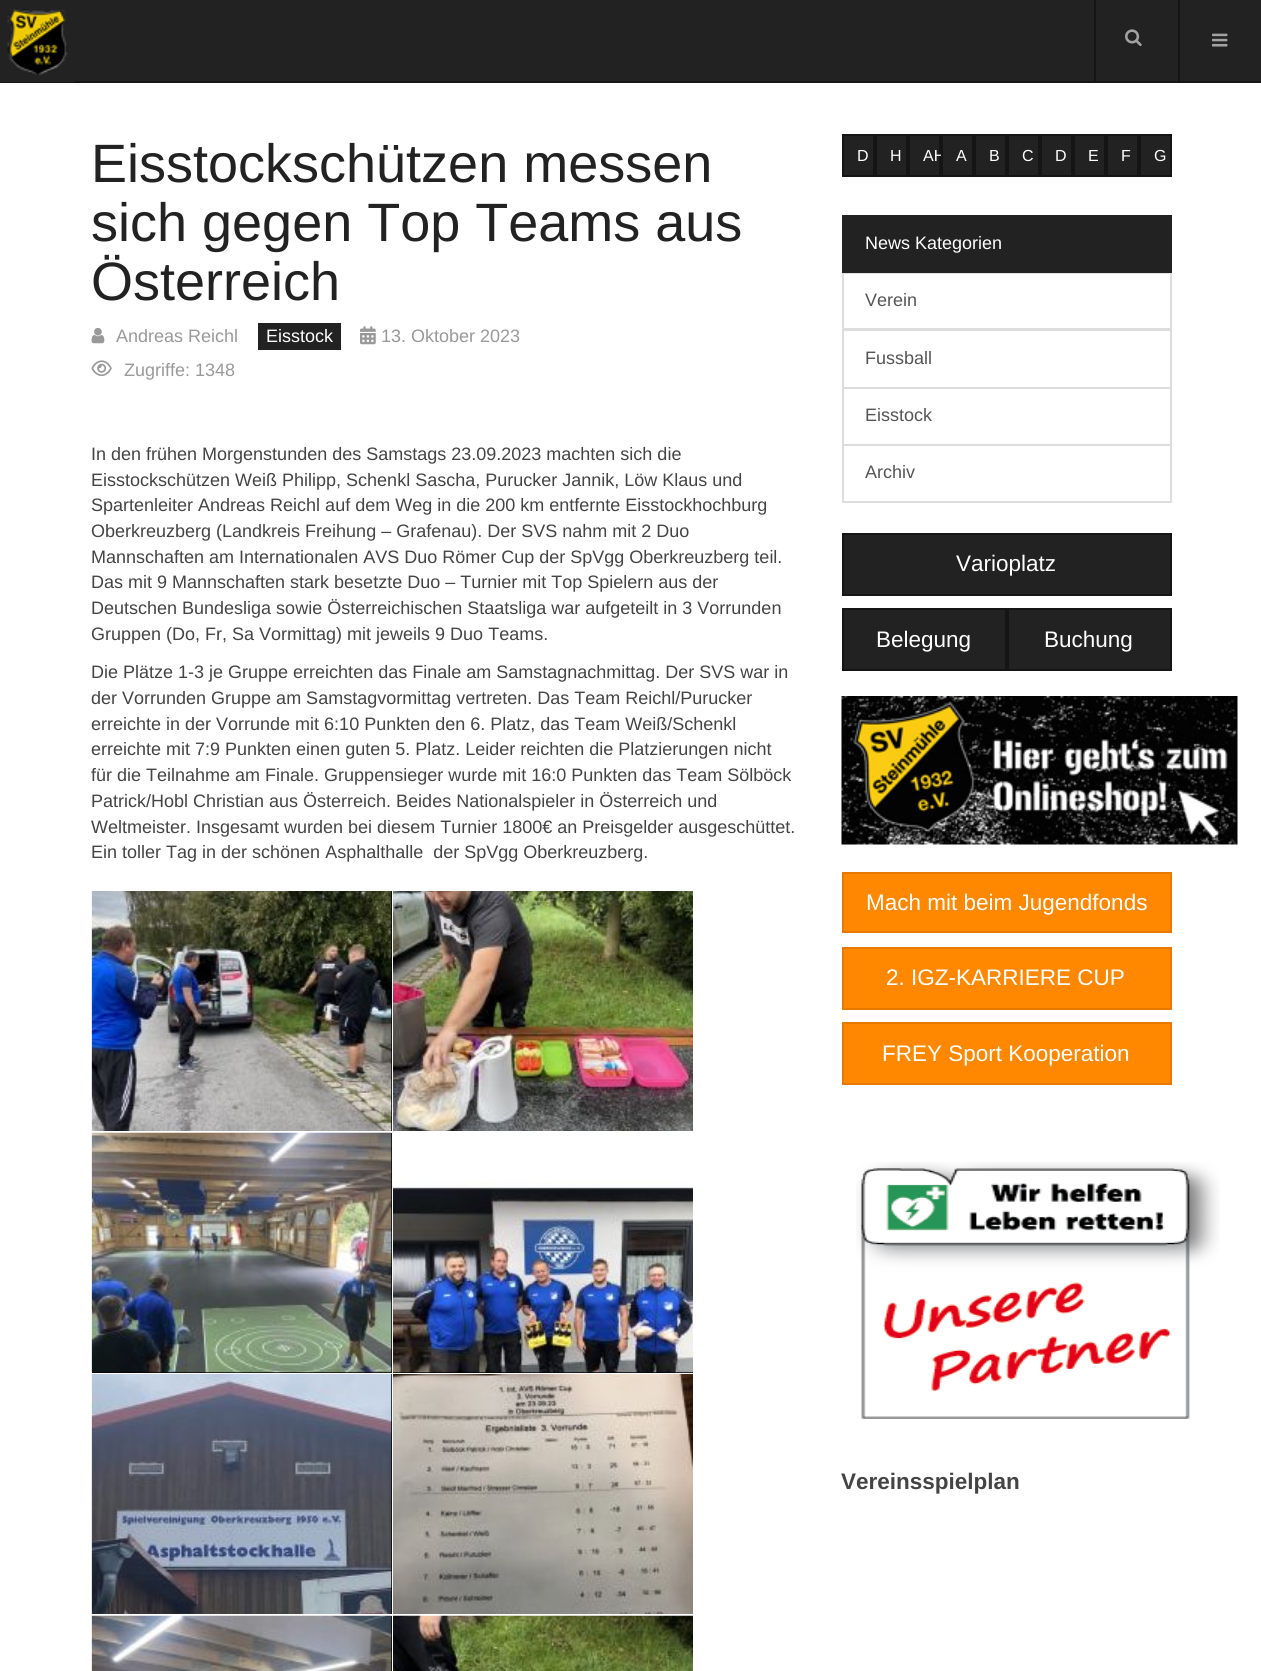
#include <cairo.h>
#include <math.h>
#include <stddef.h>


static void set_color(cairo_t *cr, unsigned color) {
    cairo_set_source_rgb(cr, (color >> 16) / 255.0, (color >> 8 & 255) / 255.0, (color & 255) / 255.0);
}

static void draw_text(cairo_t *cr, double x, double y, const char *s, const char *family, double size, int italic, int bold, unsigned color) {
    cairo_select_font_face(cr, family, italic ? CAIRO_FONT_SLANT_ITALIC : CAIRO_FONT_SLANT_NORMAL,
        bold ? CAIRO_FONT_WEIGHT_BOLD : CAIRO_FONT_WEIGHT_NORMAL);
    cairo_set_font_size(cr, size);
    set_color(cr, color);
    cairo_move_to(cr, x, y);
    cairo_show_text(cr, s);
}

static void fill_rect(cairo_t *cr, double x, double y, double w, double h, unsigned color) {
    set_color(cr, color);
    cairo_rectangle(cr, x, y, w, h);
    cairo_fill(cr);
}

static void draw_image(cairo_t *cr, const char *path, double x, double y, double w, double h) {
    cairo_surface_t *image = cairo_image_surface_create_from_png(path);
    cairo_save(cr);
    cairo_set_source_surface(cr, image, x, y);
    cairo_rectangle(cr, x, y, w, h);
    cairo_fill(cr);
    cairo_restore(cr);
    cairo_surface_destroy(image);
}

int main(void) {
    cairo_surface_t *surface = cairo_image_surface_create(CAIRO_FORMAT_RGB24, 1261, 1671);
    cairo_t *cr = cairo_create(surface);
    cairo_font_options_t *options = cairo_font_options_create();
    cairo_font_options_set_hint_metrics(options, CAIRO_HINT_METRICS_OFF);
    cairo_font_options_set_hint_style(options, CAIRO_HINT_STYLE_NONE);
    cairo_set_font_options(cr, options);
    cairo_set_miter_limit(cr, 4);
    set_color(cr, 0xFFFFFF);
    cairo_paint(cr);
    fill_rect(cr, 75, 0, 1186, 81, 0x222222);
    fill_rect(cr, 75, 81, 1186, 2, 0x151515);
    fill_rect(cr, 0, 82, 75, 1, 0x151515);
    draw_image(cr, "assets/img1.png", 0, 0, 75, 82);
    fill_rect(cr, 1178, 0, 2, 81, 0x151515);
    fill_rect(cr, 1094, 0, 2, 81, 0x151515);
    draw_image(cr, "assets/img2.png", 1125, 29, 17, 17);
    draw_image(cr, "assets/img3.png", 1212, 33, 16, 14);
    draw_text(cr, 91, 182, "Eisstockschützen messen", "Liberation Sans", 54, 0, 0, 0x222222);
    draw_text(cr, 91, 241, "sich gegen Top Teams aus", "Liberation Sans", 54, 0, 0, 0x222222);
    draw_text(cr, 91, 300, "Österreich", "Liberation Sans", 54, 0, 0, 0x222222);
    draw_image(cr, "assets/img4.png", 91, 327, 14, 17);
    draw_text(cr, 116, 342, "Andreas Reichl", "Liberation Sans", 18, 0, 0, 0x999999);
    fill_rect(cr, 258, 323, 83, 27, 0x222222);
    draw_text(cr, 266, 342, "Eisstock", "Liberation Sans", 18, 0, 0, 0xFFFFFF);
    draw_image(cr, "assets/img5.png", 360, 326, 16, 19);
    draw_text(cr, 381, 342, "13. Oktober 2023", "Liberation Sans", 18, 0, 0, 0x999999);
    draw_image(cr, "assets/img6.png", 91, 360, 21, 17);
    draw_text(cr, 124, 376, "Zugriffe: 1348", "Liberation Sans", 18, 0, 0, 0x999999);
    draw_text(cr, 91, 460, "In den frühen Morgenstunden des Samstags 23.09.2023 machten sich die", "Liberation Sans", 18, 0, 0, 0x444444);
    draw_text(cr, 91, 486, "Eisstockschützen Weiß Philipp, Schenkl Sascha, Purucker Jannik, Löw Klaus und", "Liberation Sans", 18, 0, 0, 0x444444);
    draw_text(cr, 91, 511, "Spartenleiter Andreas Reichl auf dem Weg in die 200 km entfernte Eisstockhochburg", "Liberation Sans", 18, 0, 0, 0x444444);
    draw_text(cr, 91, 537, "Oberkreuzberg (Landkreis Freihung – Grafenau). Der SVS nahm mit 2 Duo", "Liberation Sans", 18, 0, 0, 0x444444);
    draw_text(cr, 91, 563, "Mannschaften am Internationalen AVS Duo Römer Cup der SpVgg Oberkreuzberg teil.", "Liberation Sans", 18, 0, 0, 0x444444);
    draw_text(cr, 91, 588, "Das mit 9 Mannschaften stark besetzte Duo – Turnier mit Top Spielern aus der", "Liberation Sans", 18, 0, 0, 0x444444);
    draw_text(cr, 91, 614, "Deutschen Bundesliga sowie Österreichischen Staatsliga war aufgeteilt in 3 Vorrunden", "Liberation Sans", 18, 0, 0, 0x444444);
    draw_text(cr, 91, 640, "Gruppen (Do, Fr, Sa Vormittag) mit jeweils 9 Duo Teams.", "Liberation Sans", 18, 0, 0, 0x444444);
    draw_text(cr, 91, 678, "Die Plätze 1-3 je Gruppe erreichten das Finale am Samstagnachmittag. Der SVS war in", "Liberation Sans", 18, 0, 0, 0x444444);
    draw_text(cr, 91, 704, "der Vorrunden Gruppe am Samstagvormittag vertreten. Das Team Reichl/Purucker", "Liberation Sans", 18, 0, 0, 0x444444);
    draw_text(cr, 91, 730, "erreichte in der Vorrunde mit 6:10 Punkten den 6. Platz, das Team Weiß/Schenkl", "Liberation Sans", 18, 0, 0, 0x444444);
    draw_text(cr, 91, 755, "erreichte mit 7:9 Punkten einen guten 5. Platz. Leider reichten die Platzierungen nicht", "Liberation Sans", 18, 0, 0, 0x444444);
    draw_text(cr, 91, 781, "für die Teilnahme am Finale. Gruppensieger wurde mit 16:0 Punkten das Team Sölböck", "Liberation Sans", 18, 0, 0, 0x444444);
    draw_text(cr, 91, 807, "Patrick/Hobl Christian aus Österreich. Beides Nationalspieler in Österreich und", "Liberation Sans", 18, 0, 0, 0x444444);
    draw_text(cr, 91, 833, "Weltmeister. Insgesamt wurden bei diesem Turnier 1800€ an Preisgelder ausgeschüttet.", "Liberation Sans", 18, 0, 0, 0x444444);
    draw_text(cr, 91, 858, "Ein toller Tag in der schönen Asphalthalle  der SpVgg Oberkreuzberg.", "Liberation Sans", 18, 0, 0, 0x444444);
    fill_rect(cr, 391, 891, 1, 240, 0x000000);
    draw_image(cr, "assets/img7.png", 91, 891, 301, 240);
    draw_image(cr, "assets/img8.png", 393, 891, 300, 240);
    fill_rect(cr, 92, 1133, 300, 240, 0x000000);
    draw_image(cr, "assets/img9.png", 91, 1132, 301, 241);
    fill_rect(cr, 393, 1372, 300, 1, 0x000000);
    draw_image(cr, "assets/img10.png", 393, 1133, 300, 240);
    fill_rect(cr, 391, 1374, 1, 240, 0x000000);
    draw_image(cr, "assets/img11.png", 91, 1374, 301, 240);
    draw_image(cr, "assets/img12.png", 393, 1374, 300, 240);
    fill_rect(cr, 391, 1616, 1, 55, 0x000000);
    draw_image(cr, "assets/img13.png", 91, 1615, 301, 56);
    draw_image(cr, "assets/img14.png", 393, 1615, 300, 56);
    set_color(cr, 0x222222);
    cairo_rectangle(cr, 843, 135, 31, 41);
    cairo_fill_preserve(cr);
    set_color(cr, 0x151515);
    cairo_stroke(cr);
    draw_text(cr, 857, 161, "D", "Liberation Sans", 16, 0, 0, 0xFFFFFF);
    set_color(cr, 0x222222);
    cairo_rectangle(cr, 876, 135, 31, 41);
    cairo_fill_preserve(cr);
    set_color(cr, 0x151515);
    cairo_stroke(cr);
    draw_text(cr, 890, 161, "H", "Liberation Sans", 16, 0, 0, 0xFFFFFF);
    set_color(cr, 0x222222);
    cairo_rectangle(cr, 909, 135, 31, 41);
    cairo_fill_preserve(cr);
    set_color(cr, 0x151515);
    cairo_stroke(cr);
    draw_text(cr, 923, 161, "AH", "Liberation Sans", 16, 0, 0, 0xFFFFFF);
    set_color(cr, 0x222222);
    cairo_rectangle(cr, 942, 135, 31, 41);
    cairo_fill_preserve(cr);
    set_color(cr, 0x151515);
    cairo_stroke(cr);
    draw_text(cr, 956, 161, "A", "Liberation Sans", 16, 0, 0, 0xFFFFFF);
    set_color(cr, 0x222222);
    cairo_rectangle(cr, 975, 135, 31, 41);
    cairo_fill_preserve(cr);
    set_color(cr, 0x151515);
    cairo_stroke(cr);
    draw_text(cr, 989, 161, "B", "Liberation Sans", 16, 0, 0, 0xFFFFFF);
    set_color(cr, 0x222222);
    cairo_rectangle(cr, 1008, 135, 31, 41);
    cairo_fill_preserve(cr);
    set_color(cr, 0x151515);
    cairo_stroke(cr);
    draw_text(cr, 1022, 161, "C", "Liberation Sans", 16, 0, 0, 0xFFFFFF);
    set_color(cr, 0x222222);
    cairo_rectangle(cr, 1041, 135, 31, 41);
    cairo_fill_preserve(cr);
    set_color(cr, 0x151515);
    cairo_stroke(cr);
    draw_text(cr, 1055, 161, "D", "Liberation Sans", 16, 0, 0, 0xFFFFFF);
    set_color(cr, 0x222222);
    cairo_rectangle(cr, 1074, 135, 31, 41);
    cairo_fill_preserve(cr);
    set_color(cr, 0x151515);
    cairo_stroke(cr);
    draw_text(cr, 1088, 161, "E", "Liberation Sans", 16, 0, 0, 0xFFFFFF);
    set_color(cr, 0x222222);
    cairo_rectangle(cr, 1107, 135, 31, 41);
    cairo_fill_preserve(cr);
    set_color(cr, 0x151515);
    cairo_stroke(cr);
    draw_text(cr, 1121, 161, "F", "Liberation Sans", 16, 0, 0, 0xFFFFFF);
    set_color(cr, 0x222222);
    cairo_rectangle(cr, 1140, 135, 31, 41);
    cairo_fill_preserve(cr);
    set_color(cr, 0x151515);
    cairo_stroke(cr);
    draw_text(cr, 1154, 161, "G", "Liberation Sans", 16, 0, 0, 0xFFFFFF);
    cairo_rectangle(cr, 843, 273, 328, 56);
    set_color(cr, 0xDDDDDD);
    cairo_stroke(cr);
    fill_rect(cr, 842, 215, 330, 58, 0x222222);
    draw_text(cr, 865, 249, "News Kategorien", "Liberation Sans", 18, 0, 0, 0xFFFFFF);
    draw_text(cr, 865, 306, "Verein", "Liberation Sans", 18, 0, 0, 0x555555);
    cairo_rectangle(cr, 843, 330, 328, 58);
    set_color(cr, 0xDDDDDD);
    cairo_stroke(cr);
    draw_text(cr, 865, 364, "Fussball", "Liberation Sans", 18, 0, 0, 0x555555);
    cairo_rectangle(cr, 843, 388, 328, 57);
    set_color(cr, 0xDDDDDD);
    cairo_stroke(cr);
    draw_text(cr, 865, 421, "Eisstock", "Liberation Sans", 18, 0, 0, 0x555555);
    cairo_rectangle(cr, 843, 445, 328, 57);
    set_color(cr, 0xDDDDDD);
    cairo_stroke(cr);
    draw_text(cr, 865, 478, "Archiv", "Liberation Sans", 18, 0, 0, 0x555555);
    set_color(cr, 0x222222);
    cairo_rectangle(cr, 843, 534, 328, 61);
    cairo_fill_preserve(cr);
    set_color(cr, 0x151515);
    cairo_stroke(cr);
    draw_text(cr, 956, 571, "Varioplatz", "Liberation Sans", 22.5, 0, 0, 0xFFFFFF);
    set_color(cr, 0x222222);
    cairo_rectangle(cr, 843, 609, 163, 61);
    cairo_fill_preserve(cr);
    set_color(cr, 0x151515);
    cairo_stroke(cr);
    draw_text(cr, 876, 647, "Belegung", "Liberation Sans", 22.5, 0, 0, 0xFFFFFF);
    set_color(cr, 0x222222);
    cairo_rectangle(cr, 1008, 609, 163, 61);
    cairo_fill_preserve(cr);
    set_color(cr, 0x151515);
    cairo_stroke(cr);
    draw_text(cr, 1044, 647, "Buchung", "Liberation Sans", 22.5, 0, 0, 0xFFFFFF);
    draw_image(cr, "assets/img15.png", 841, 696, 397, 149);
    set_color(cr, 0xFF8800);
    cairo_rectangle(cr, 843, 873, 328, 59);
    cairo_fill_preserve(cr);
    set_color(cr, 0xE67A00);
    cairo_stroke(cr);
    draw_text(cr, 866, 910, "Mach mit beim Jugendfonds", "Liberation Sans", 22.5, 0, 0, 0xFFFFFF);
    set_color(cr, 0xFF8800);
    cairo_rectangle(cr, 843, 948, 328, 61);
    cairo_fill_preserve(cr);
    set_color(cr, 0xE67A00);
    cairo_stroke(cr);
    draw_text(cr, 886, 985, "2. IGZ-KARRIERE CUP", "Liberation Sans", 22.5, 0, 0, 0xFFFFFF);
    set_color(cr, 0xFF8800);
    cairo_rectangle(cr, 843, 1023, 328, 61);
    cairo_fill_preserve(cr);
    set_color(cr, 0xE67A00);
    cairo_stroke(cr);
    draw_text(cr, 882, 1061, "FREY Sport Kooperation", "Liberation Sans", 22.5, 0, 0, 0xFFFFFF);
    draw_image(cr, "assets/img16.png", 856, 1162, 364, 257);
    draw_text(cr, 841, 1489, "Vereinsspielplan", "Liberation Sans", 22.5, 0, 1, 0x444444);
    cairo_surface_write_to_png(surface, "output.png");
    cairo_font_options_destroy(options);
    cairo_destroy(cr);
    cairo_surface_destroy(surface);
    return 0;
}
